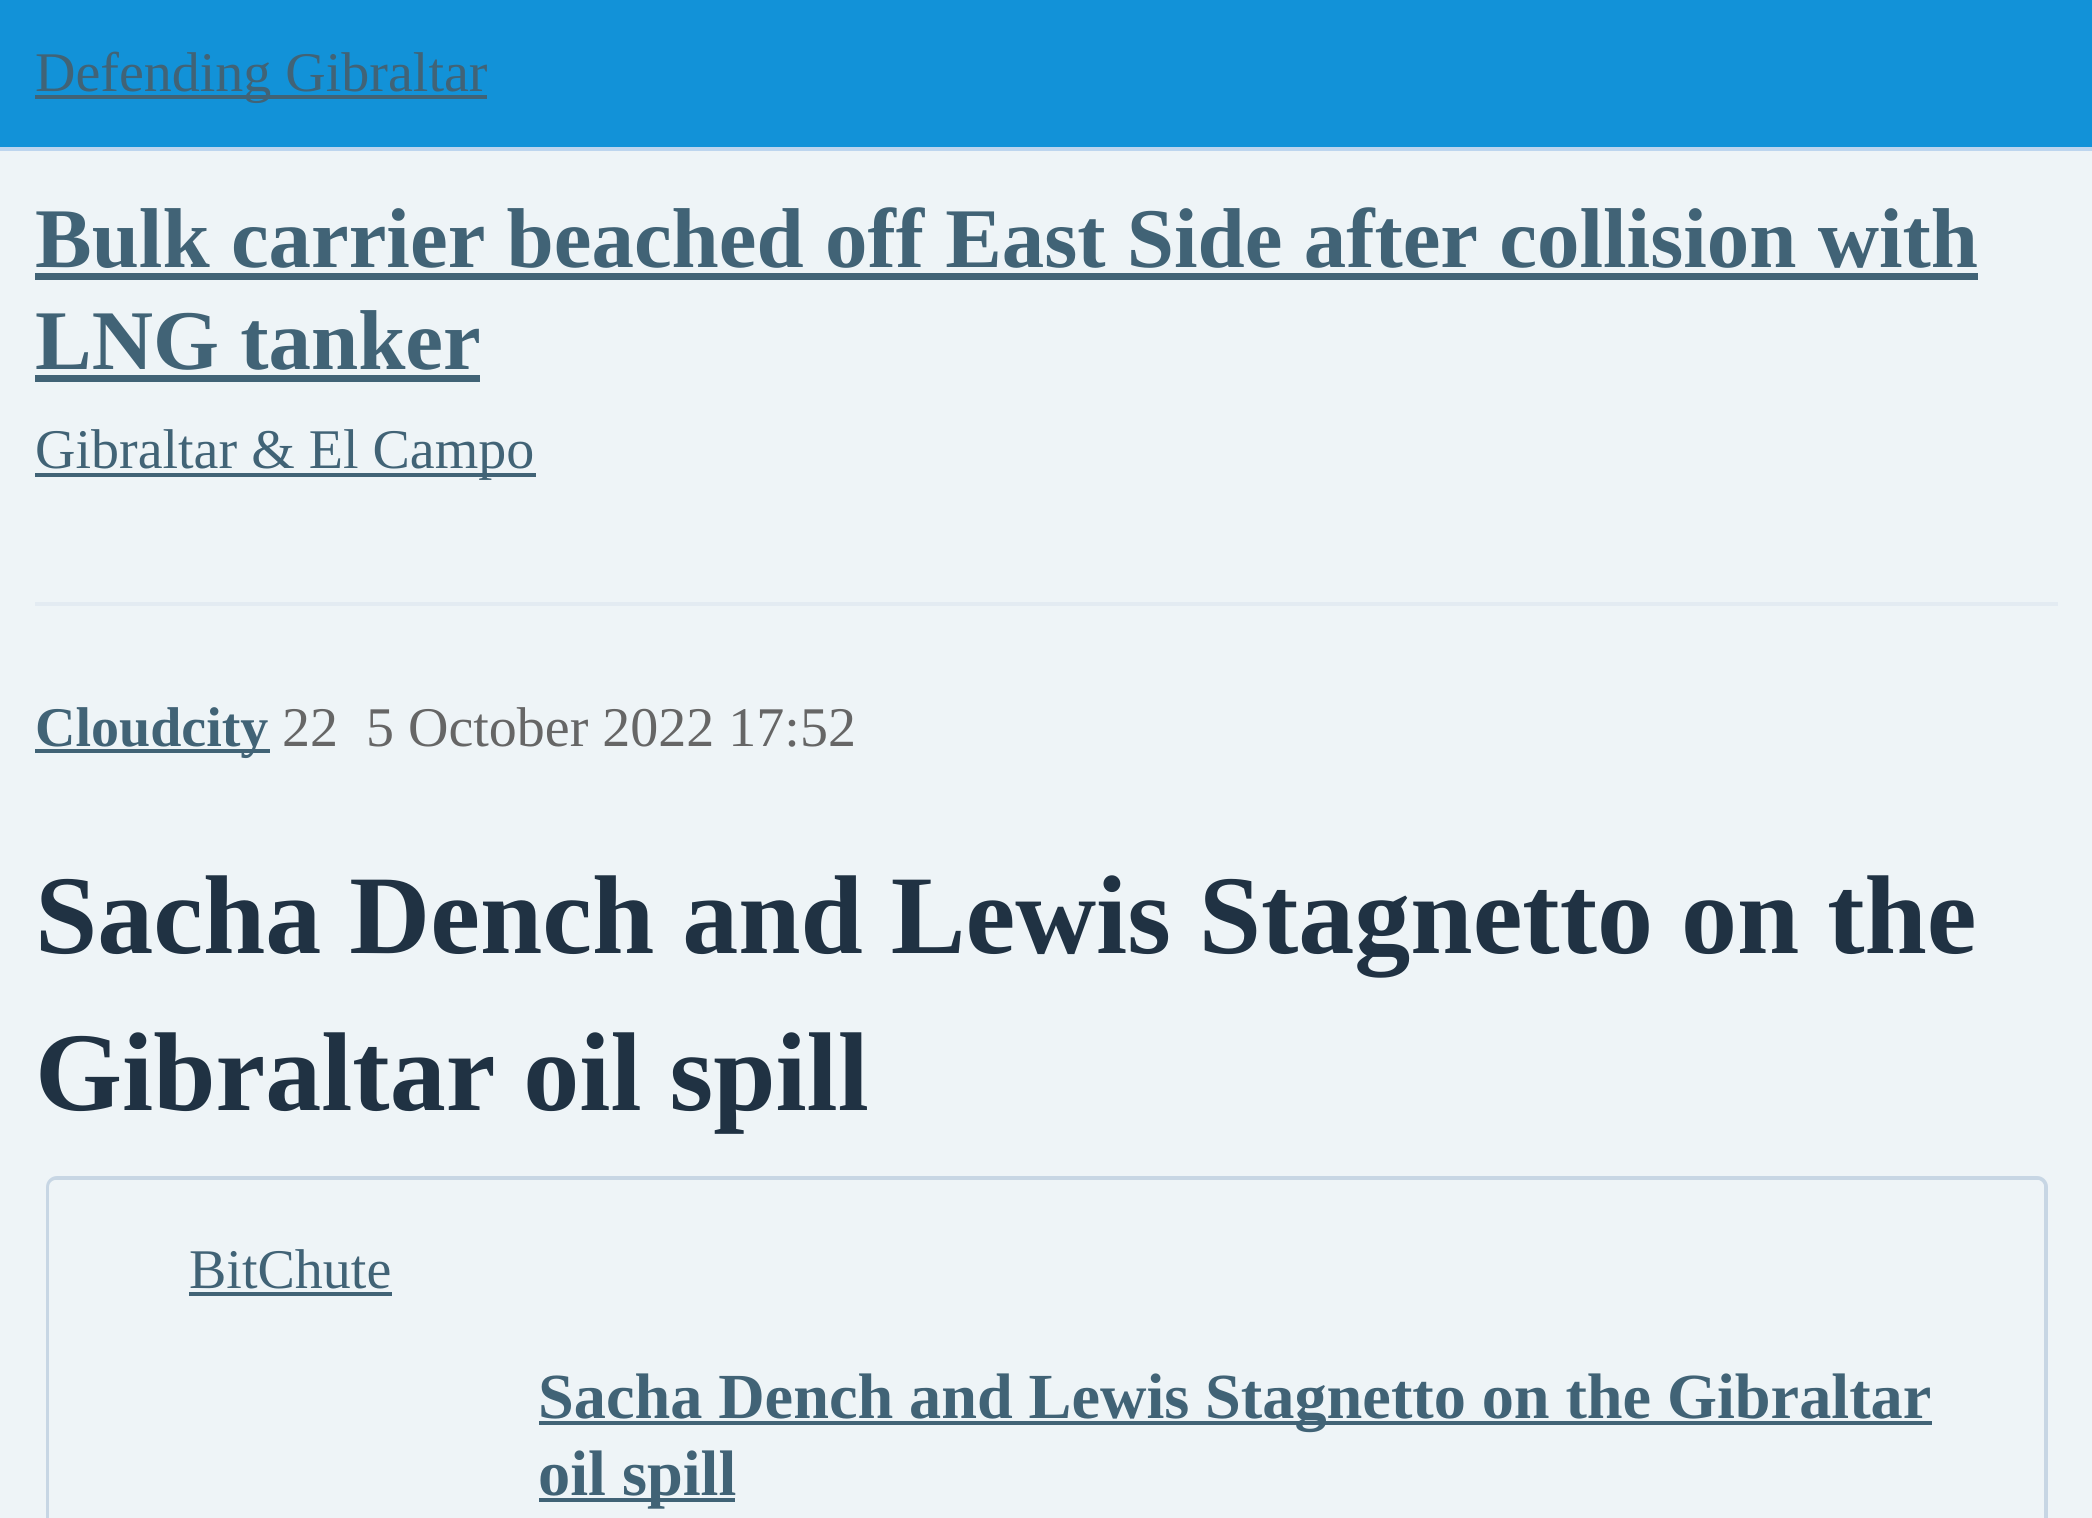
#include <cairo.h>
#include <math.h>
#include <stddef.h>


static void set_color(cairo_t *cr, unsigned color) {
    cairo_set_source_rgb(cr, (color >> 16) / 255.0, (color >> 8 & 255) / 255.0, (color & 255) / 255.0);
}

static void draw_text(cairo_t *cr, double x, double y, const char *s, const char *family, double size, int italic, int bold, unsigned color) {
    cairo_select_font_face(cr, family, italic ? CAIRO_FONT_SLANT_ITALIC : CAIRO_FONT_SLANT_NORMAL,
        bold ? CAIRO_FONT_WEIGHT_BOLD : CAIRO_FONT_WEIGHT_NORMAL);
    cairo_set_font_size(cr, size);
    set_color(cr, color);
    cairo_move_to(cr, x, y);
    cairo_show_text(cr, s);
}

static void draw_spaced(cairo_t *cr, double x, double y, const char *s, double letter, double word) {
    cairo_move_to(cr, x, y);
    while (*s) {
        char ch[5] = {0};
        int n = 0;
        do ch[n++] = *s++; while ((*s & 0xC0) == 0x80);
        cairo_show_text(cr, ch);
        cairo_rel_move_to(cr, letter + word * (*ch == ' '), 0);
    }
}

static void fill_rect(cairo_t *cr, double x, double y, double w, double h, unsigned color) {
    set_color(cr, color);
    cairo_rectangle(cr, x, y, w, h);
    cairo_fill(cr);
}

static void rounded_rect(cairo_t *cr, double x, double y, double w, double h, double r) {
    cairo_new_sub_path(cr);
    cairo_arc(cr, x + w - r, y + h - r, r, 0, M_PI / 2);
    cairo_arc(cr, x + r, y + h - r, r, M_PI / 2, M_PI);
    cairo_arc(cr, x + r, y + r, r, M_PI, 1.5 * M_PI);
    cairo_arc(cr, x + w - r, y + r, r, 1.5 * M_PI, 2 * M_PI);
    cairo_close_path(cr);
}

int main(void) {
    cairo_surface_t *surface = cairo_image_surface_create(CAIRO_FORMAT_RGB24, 2092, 1518);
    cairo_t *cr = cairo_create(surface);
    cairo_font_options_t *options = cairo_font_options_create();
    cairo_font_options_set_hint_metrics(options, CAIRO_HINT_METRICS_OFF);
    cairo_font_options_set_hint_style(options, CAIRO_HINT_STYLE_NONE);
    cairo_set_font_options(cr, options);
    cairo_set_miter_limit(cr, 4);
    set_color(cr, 0xEEF4F7);
    cairo_paint(cr);
    fill_rect(cr, 0, 0, 2092, 147, 0x1292D8);
    fill_rect(cr, 0, 147, 2092, 4, 0xBDD5EE);
    fill_rect(cr, 35, 95, 452, 4, 0x416376);
    draw_text(cr, 35, 91, "Defending Gibraltar", "Liberation Serif", 56, 0, 0, 0x416376);
    draw_text(cr, 35, 267, "Bulk carrier beached off East Side after collision with", "Liberation Serif", 84.9, 0, 1, 0x416376);
    fill_rect(cr, 35, 273, 1943, 7, 0x416376);
    draw_text(cr, 35, 369, "LNG tanker", "Liberation Serif", 84.9, 0, 1, 0x416376);
    fill_rect(cr, 35, 375, 445, 7, 0x416376);
    fill_rect(cr, 35, 473, 501, 4, 0x416376);
    draw_text(cr, 35, 468, "Gibraltar & El Campo", "Liberation Serif", 56, 0, 0, 0x416376);
    fill_rect(cr, 35, 602, 2023, 4, 0xE3EBF2);
    fill_rect(cr, 35, 749, 235, 4, 0x416376);
    draw_text(cr, 35, 746, "Cloudcity", "Liberation Serif", 56, 0, 1, 0x416376);
    draw_text(cr, 282, 746, "22", "Liberation Serif", 56, 0, 0, 0x666666);
    draw_text(cr, 366, 746, "5 October 2022 17:52", "Liberation Serif", 56, 0, 0, 0x666666);
    draw_text(cr, 35, 953, "Sacha Dench and Lewis Stagnetto on the", "Liberation Serif", 112, 0, 1, 0x203243);
    draw_text(cr, 35, 1110, "Gibraltar oil spill", "Liberation Serif", 112, 0, 1, 0x203243);
    rounded_rect(cr, 48, 1178, 1998, 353, 9);
    set_color(cr, 0xC7D6E4);
    cairo_set_line_width(cr, 4);
    cairo_stroke(cr);
    set_color(cr, 0xEEF4F7);
    rounded_rect(cr, 49, 1180, 1995, 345, 7);
    cairo_fill(cr);
    draw_text(cr, 189, 1288, "BitChute", "Liberation Serif", 56, 0, 0, 0x416376);
    fill_rect(cr, 189, 1292, 203, 4, 0x416376);
    fill_rect(cr, 539, 1421, 1393, 4, 0x416376);
    cairo_select_font_face(cr, "Liberation Serif", CAIRO_FONT_SLANT_NORMAL, CAIRO_FONT_WEIGHT_BOLD);
    cairo_set_font_size(cr, 64.3);
    draw_spaced(cr, 538, 1418, "Sacha Dench and Lewis Stagnetto on the Gibraltar", 0, -0.25);
    fill_rect(cr, 539, 1498, 196, 4, 0x416376);
    draw_text(cr, 538, 1495, "oil spill", "Liberation Serif", 64.3, 0, 1, 0x416376);
    cairo_surface_write_to_png(surface, "output.png");
    cairo_font_options_destroy(options);
    cairo_destroy(cr);
    cairo_surface_destroy(surface);
    return 0;
}
